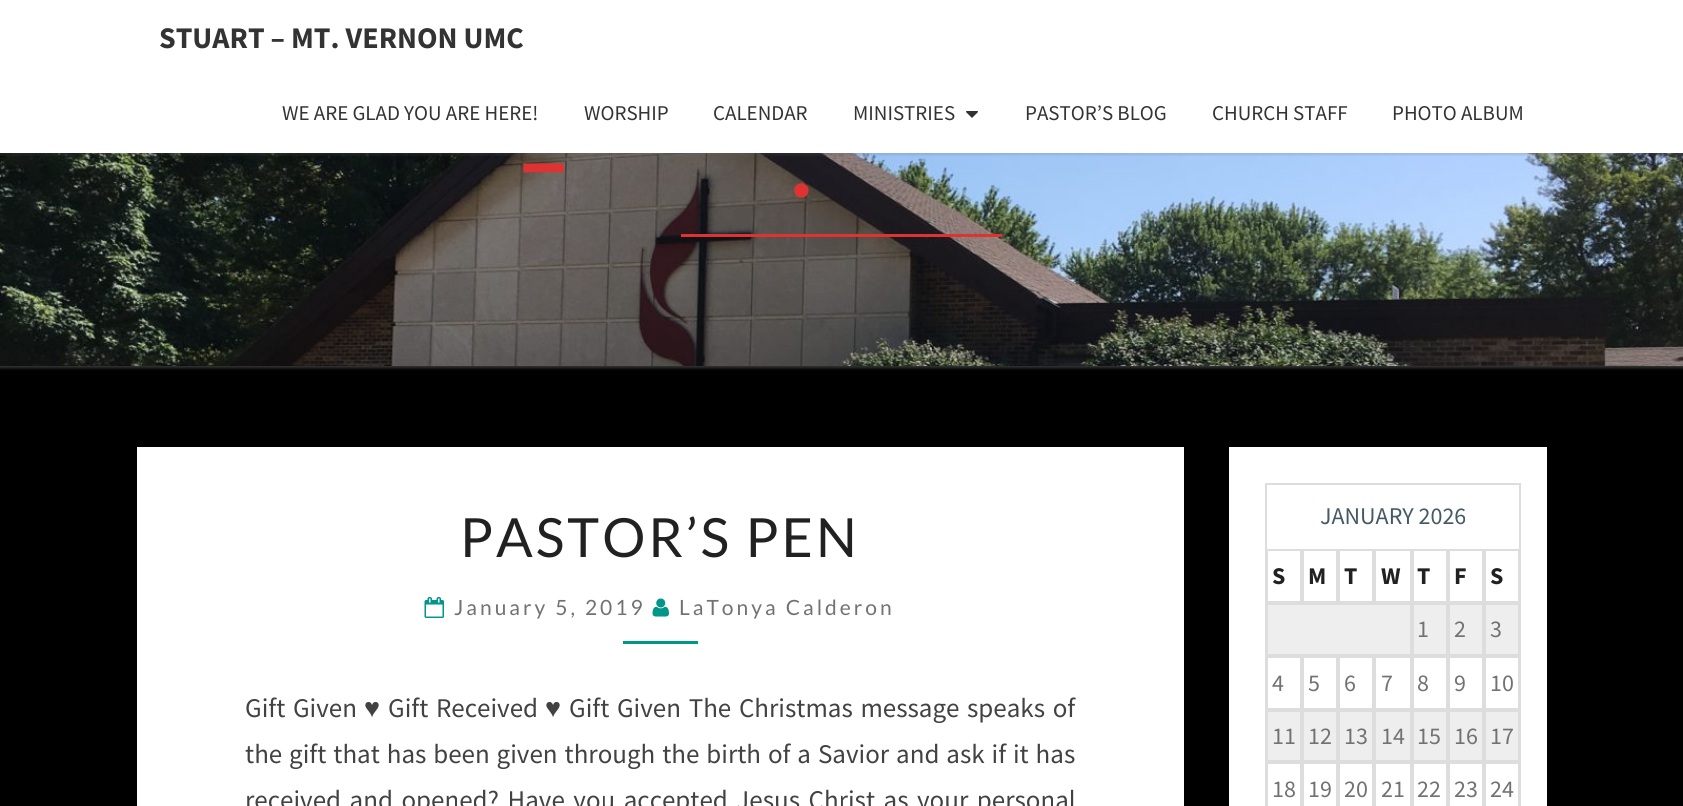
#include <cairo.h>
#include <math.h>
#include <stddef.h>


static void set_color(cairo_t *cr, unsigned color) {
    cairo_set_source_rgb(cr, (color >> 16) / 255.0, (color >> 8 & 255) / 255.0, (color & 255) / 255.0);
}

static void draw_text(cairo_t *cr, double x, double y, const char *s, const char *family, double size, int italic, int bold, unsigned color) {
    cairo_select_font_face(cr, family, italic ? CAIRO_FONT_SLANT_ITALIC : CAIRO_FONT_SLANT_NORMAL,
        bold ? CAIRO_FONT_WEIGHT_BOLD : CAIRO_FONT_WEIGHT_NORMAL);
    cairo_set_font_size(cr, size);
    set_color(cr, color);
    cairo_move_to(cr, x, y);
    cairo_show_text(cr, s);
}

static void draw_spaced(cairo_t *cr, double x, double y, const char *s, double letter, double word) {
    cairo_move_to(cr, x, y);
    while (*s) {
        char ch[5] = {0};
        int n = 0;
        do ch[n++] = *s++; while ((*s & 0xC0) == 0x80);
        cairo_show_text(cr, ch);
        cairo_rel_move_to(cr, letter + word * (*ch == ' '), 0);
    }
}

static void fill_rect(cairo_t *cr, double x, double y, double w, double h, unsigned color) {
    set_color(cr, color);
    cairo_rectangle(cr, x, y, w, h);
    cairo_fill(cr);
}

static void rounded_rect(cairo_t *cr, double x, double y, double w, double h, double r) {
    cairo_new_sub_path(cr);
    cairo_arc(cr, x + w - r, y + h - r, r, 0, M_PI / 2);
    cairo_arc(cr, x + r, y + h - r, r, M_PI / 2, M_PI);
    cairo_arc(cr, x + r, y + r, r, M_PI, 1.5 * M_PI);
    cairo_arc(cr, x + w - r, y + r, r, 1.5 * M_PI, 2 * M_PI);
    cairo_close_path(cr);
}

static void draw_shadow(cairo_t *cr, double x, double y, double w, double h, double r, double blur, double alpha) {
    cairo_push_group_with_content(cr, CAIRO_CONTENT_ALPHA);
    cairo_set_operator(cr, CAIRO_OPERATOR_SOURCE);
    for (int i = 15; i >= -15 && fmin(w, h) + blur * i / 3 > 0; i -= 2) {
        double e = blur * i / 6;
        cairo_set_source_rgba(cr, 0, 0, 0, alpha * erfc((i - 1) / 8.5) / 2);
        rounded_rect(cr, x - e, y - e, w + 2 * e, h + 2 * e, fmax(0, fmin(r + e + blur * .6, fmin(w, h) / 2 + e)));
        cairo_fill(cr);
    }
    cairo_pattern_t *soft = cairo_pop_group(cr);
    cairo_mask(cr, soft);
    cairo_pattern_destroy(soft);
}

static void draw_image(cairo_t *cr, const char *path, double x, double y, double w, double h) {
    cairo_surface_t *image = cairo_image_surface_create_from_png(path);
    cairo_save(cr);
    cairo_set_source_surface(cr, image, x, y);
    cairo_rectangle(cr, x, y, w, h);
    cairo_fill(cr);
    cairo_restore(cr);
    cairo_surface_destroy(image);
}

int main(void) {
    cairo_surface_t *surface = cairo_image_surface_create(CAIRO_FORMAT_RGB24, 1683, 806);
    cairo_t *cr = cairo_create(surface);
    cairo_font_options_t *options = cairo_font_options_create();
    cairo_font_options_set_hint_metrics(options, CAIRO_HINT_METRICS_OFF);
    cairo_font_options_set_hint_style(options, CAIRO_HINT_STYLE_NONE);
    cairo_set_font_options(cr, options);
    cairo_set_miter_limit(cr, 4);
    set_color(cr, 0x000000);
    cairo_paint(cr);
    set_color(cr, 0xB6B6B6);
    draw_shadow(cr, -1, -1, 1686, 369, 0, 1.5, 0.3);
    draw_image(cr, "assets/img2.png", 0, 153, 1683, 213);
    set_color(cr, 0x646464);
    draw_shadow(cr, 0, 2, 1683, 153, 0, 1, 0.2);
    fill_rect(cr, 0, 0, 1683, 153, 0xFFFFFF);
    draw_text(cr, 159, 48, "STUART – MT. VERNON UMC", "Source Sans Pro", 30, 0, 1, 0x333333);
    draw_text(cr, 282, 120, "WE ARE GLAD YOU ARE HERE!", "Source Sans Pro", 21, 0, 0, 0x333333);
    draw_text(cr, 584, 120, "WORSHIP", "Source Sans Pro", 21, 0, 0, 0x333333);
    draw_text(cr, 713, 120, "CALENDAR", "Source Sans Pro", 21, 0, 0, 0x333333);
    draw_text(cr, 853, 120, "MINISTRIES", "Source Sans Pro", 21, 0, 0, 0x333333);
    draw_image(cr, "assets/img1.png", 966, 111, 12, 7);
    draw_text(cr, 1025, 120, "PASTOR’S BLOG", "Source Sans Pro", 21, 0, 0, 0x333333);
    draw_text(cr, 1212, 120, "CHURCH STAFF", "Source Sans Pro", 21, 0, 0, 0x333333);
    draw_text(cr, 1392, 120, "PHOTO ALBUM", "Source Sans Pro", 21, 0, 0, 0x333333);
    cairo_select_font_face(cr, "Lato", CAIRO_FONT_SLANT_NORMAL, CAIRO_FONT_WEIGHT_BOLD);
    cairo_set_font_size(cr, 94);
    set_color(cr, 0xDD3333);
    draw_spaced(cr, 516, 197, "–", 15, 0);
    draw_spaced(cr, 790, 197, ".", 15, 0);
    fill_rect(cr, 681, 234, 321, 3, 0xDD3333);
    fill_rect(cr, 137, 447, 1047, 359, 0xFFFFFF);
    cairo_select_font_face(cr, "Lato", CAIRO_FONT_SLANT_NORMAL, CAIRO_FONT_WEIGHT_NORMAL);
    cairo_set_font_size(cr, 54);
    set_color(cr, 0x212121);
    draw_spaced(cr, 460, 557, "PASTOR’S PEN", 3, 0);
    draw_image(cr, "assets/img3.png", 424, 597, 20, 21);
    cairo_set_font_size(cr, 21);
    set_color(cr, 0x727272);
    draw_spaced(cr, 454, 615, "January 5, 2019", 3, 0);
    draw_image(cr, "assets/img4.png", 652, 598, 17, 19);
    draw_spaced(cr, 679, 615, "LaTonya Calderon", 3, 0);
    fill_rect(cr, 623, 641, 75, 3, 0x009688);
    cairo_select_font_face(cr, "Source Sans Pro", CAIRO_FONT_SLANT_NORMAL, CAIRO_FONT_WEIGHT_NORMAL);
    cairo_set_font_size(cr, 27);
    set_color(cr, 0x424242);
    draw_spaced(cr, 245, 717, "Gift Given", 0, 2.25);
    draw_text(cr, 364, 717, "♥", "Liberation Sans", 27, 0, 0, 0x424242);
    cairo_select_font_face(cr, "Source Sans Pro", CAIRO_FONT_SLANT_NORMAL, CAIRO_FONT_WEIGHT_NORMAL);
    draw_spaced(cr, 388, 717, "Gift Received", 0, 2.25);
    draw_text(cr, 545, 717, "♥", "Liberation Sans", 27, 0, 0, 0x424242);
    cairo_select_font_face(cr, "Source Sans Pro", CAIRO_FONT_SLANT_NORMAL, CAIRO_FONT_WEIGHT_NORMAL);
    draw_spaced(cr, 569, 717, "Gift Given The Christmas message speaks of", 0, 2.25);
    draw_spaced(cr, 245, 763, "the gift that has been given through the birth of a Savior and ask if it has", 0, 1.5);
    draw_spaced(cr, 245, 809, "received and opened? Have you accepted Jesus Christ as your personal", 0, 3.1);
    fill_rect(cr, 1229, 447, 318, 359, 0xFFFFFF);
    cairo_rectangle(cr, 1266, 484, 254, 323);
    set_color(cr, 0xDDDDDD);
    cairo_stroke(cr);
    draw_text(cr, 1320, 524, "JANUARY 2026", "Source Sans Pro", 24, 0, 0, 0x455A64);
    cairo_rectangle(cr, 1267, 550, 34, 52);
    set_color(cr, 0xDDDDDD);
    cairo_stroke(cr);
    draw_text(cr, 1272, 584, "S", "Source Sans Pro", 24, 0, 1, 0x212121);
    cairo_rectangle(cr, 1303, 550, 34, 52);
    set_color(cr, 0xDDDDDD);
    cairo_stroke(cr);
    draw_text(cr, 1308, 584, "M", "Source Sans Pro", 24, 0, 1, 0x212121);
    cairo_rectangle(cr, 1339, 550, 34, 52);
    set_color(cr, 0xDDDDDD);
    cairo_stroke(cr);
    draw_text(cr, 1344, 584, "T", "Source Sans Pro", 24, 0, 1, 0x212121);
    cairo_rectangle(cr, 1375, 550, 36, 52);
    set_color(cr, 0xDDDDDD);
    cairo_stroke(cr);
    draw_text(cr, 1381, 584, "W", "Source Sans Pro", 24, 0, 1, 0x212121);
    cairo_rectangle(cr, 1413, 550, 34, 52);
    set_color(cr, 0xDDDDDD);
    cairo_stroke(cr);
    draw_text(cr, 1417, 584, "T", "Source Sans Pro", 24, 0, 1, 0x212121);
    cairo_rectangle(cr, 1449, 550, 34, 52);
    set_color(cr, 0xDDDDDD);
    cairo_stroke(cr);
    draw_text(cr, 1454, 584, "F", "Source Sans Pro", 24, 0, 1, 0x212121);
    cairo_rectangle(cr, 1485, 550, 34, 52);
    set_color(cr, 0xDDDDDD);
    cairo_stroke(cr);
    draw_text(cr, 1490, 584, "S", "Source Sans Pro", 24, 0, 1, 0x212121);
    fill_rect(cr, 1268, 605, 250, 49, 0xEEEEEE);
    cairo_rectangle(cr, 1267, 604, 144, 51);
    set_color(cr, 0xDDDDDD);
    cairo_stroke(cr);
    cairo_rectangle(cr, 1413, 604, 34, 51);
    cairo_stroke(cr);
    draw_text(cr, 1417, 637, "1", "Source Sans Pro", 24, 0, 0, 0x727272);
    cairo_rectangle(cr, 1449, 604, 34, 51);
    set_color(cr, 0xDDDDDD);
    cairo_stroke(cr);
    draw_text(cr, 1454, 637, "2", "Source Sans Pro", 24, 0, 0, 0x727272);
    cairo_rectangle(cr, 1485, 604, 34, 51);
    set_color(cr, 0xDDDDDD);
    cairo_stroke(cr);
    draw_text(cr, 1490, 637, "3", "Source Sans Pro", 24, 0, 0, 0x727272);
    cairo_rectangle(cr, 1267, 657, 34, 52);
    set_color(cr, 0xDDDDDD);
    cairo_stroke(cr);
    draw_text(cr, 1272, 691, "4", "Source Sans Pro", 24, 0, 0, 0x727272);
    cairo_rectangle(cr, 1303, 657, 34, 52);
    set_color(cr, 0xDDDDDD);
    cairo_stroke(cr);
    draw_text(cr, 1308, 691, "5", "Source Sans Pro", 24, 0, 0, 0x727272);
    cairo_rectangle(cr, 1339, 657, 34, 52);
    set_color(cr, 0xDDDDDD);
    cairo_stroke(cr);
    draw_text(cr, 1344, 691, "6", "Source Sans Pro", 24, 0, 0, 0x727272);
    cairo_rectangle(cr, 1375, 657, 36, 52);
    set_color(cr, 0xDDDDDD);
    cairo_stroke(cr);
    draw_text(cr, 1381, 691, "7", "Source Sans Pro", 24, 0, 0, 0x727272);
    cairo_rectangle(cr, 1413, 657, 34, 52);
    set_color(cr, 0xDDDDDD);
    cairo_stroke(cr);
    draw_text(cr, 1417, 691, "8", "Source Sans Pro", 24, 0, 0, 0x727272);
    cairo_rectangle(cr, 1449, 657, 34, 52);
    set_color(cr, 0xDDDDDD);
    cairo_stroke(cr);
    draw_text(cr, 1454, 691, "9", "Source Sans Pro", 24, 0, 0, 0x727272);
    cairo_rectangle(cr, 1485, 657, 34, 52);
    set_color(cr, 0xDDDDDD);
    cairo_stroke(cr);
    draw_text(cr, 1490, 691, "10", "Source Sans Pro", 24, 0, 0, 0x727272);
    fill_rect(cr, 1268, 712, 250, 48, 0xEEEEEE);
    cairo_rectangle(cr, 1267, 711, 34, 50);
    set_color(cr, 0xDDDDDD);
    cairo_stroke(cr);
    draw_text(cr, 1272, 744, "11", "Source Sans Pro", 24, 0, 0, 0x727272);
    cairo_rectangle(cr, 1303, 711, 34, 50);
    set_color(cr, 0xDDDDDD);
    cairo_stroke(cr);
    draw_text(cr, 1308, 744, "12", "Source Sans Pro", 24, 0, 0, 0x727272);
    cairo_rectangle(cr, 1339, 711, 34, 50);
    set_color(cr, 0xDDDDDD);
    cairo_stroke(cr);
    draw_text(cr, 1344, 744, "13", "Source Sans Pro", 24, 0, 0, 0x727272);
    cairo_rectangle(cr, 1375, 711, 36, 50);
    set_color(cr, 0xDDDDDD);
    cairo_stroke(cr);
    draw_text(cr, 1381, 744, "14", "Source Sans Pro", 24, 0, 0, 0x727272);
    cairo_rectangle(cr, 1413, 711, 34, 50);
    set_color(cr, 0xDDDDDD);
    cairo_stroke(cr);
    draw_text(cr, 1417, 744, "15", "Source Sans Pro", 24, 0, 0, 0x727272);
    cairo_rectangle(cr, 1449, 711, 34, 50);
    set_color(cr, 0xDDDDDD);
    cairo_stroke(cr);
    draw_text(cr, 1454, 744, "16", "Source Sans Pro", 24, 0, 0, 0x727272);
    cairo_rectangle(cr, 1485, 711, 34, 50);
    set_color(cr, 0xDDDDDD);
    cairo_stroke(cr);
    draw_text(cr, 1490, 744, "17", "Source Sans Pro", 24, 0, 0, 0x727272);
    cairo_rectangle(cr, 1267, 763, 34, 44);
    set_color(cr, 0xDDDDDD);
    cairo_stroke(cr);
    draw_text(cr, 1272, 797, "18", "Source Sans Pro", 24, 0, 0, 0x727272);
    cairo_rectangle(cr, 1303, 763, 34, 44);
    set_color(cr, 0xDDDDDD);
    cairo_stroke(cr);
    draw_text(cr, 1308, 797, "19", "Source Sans Pro", 24, 0, 0, 0x727272);
    cairo_rectangle(cr, 1339, 763, 34, 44);
    set_color(cr, 0xDDDDDD);
    cairo_stroke(cr);
    draw_text(cr, 1344, 797, "20", "Source Sans Pro", 24, 0, 0, 0x727272);
    cairo_rectangle(cr, 1375, 763, 36, 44);
    set_color(cr, 0xDDDDDD);
    cairo_stroke(cr);
    draw_text(cr, 1381, 797, "21", "Source Sans Pro", 24, 0, 0, 0x727272);
    cairo_rectangle(cr, 1413, 763, 34, 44);
    set_color(cr, 0xDDDDDD);
    cairo_stroke(cr);
    draw_text(cr, 1417, 797, "22", "Source Sans Pro", 24, 0, 0, 0x727272);
    cairo_rectangle(cr, 1449, 763, 34, 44);
    set_color(cr, 0xDDDDDD);
    cairo_stroke(cr);
    draw_text(cr, 1454, 797, "23", "Source Sans Pro", 24, 0, 0, 0x727272);
    cairo_rectangle(cr, 1485, 763, 34, 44);
    set_color(cr, 0xDDDDDD);
    cairo_stroke(cr);
    draw_text(cr, 1490, 797, "24", "Source Sans Pro", 24, 0, 0, 0x727272);
    cairo_surface_write_to_png(surface, "output.png");
    cairo_font_options_destroy(options);
    cairo_destroy(cr);
    cairo_surface_destroy(surface);
    return 0;
}
